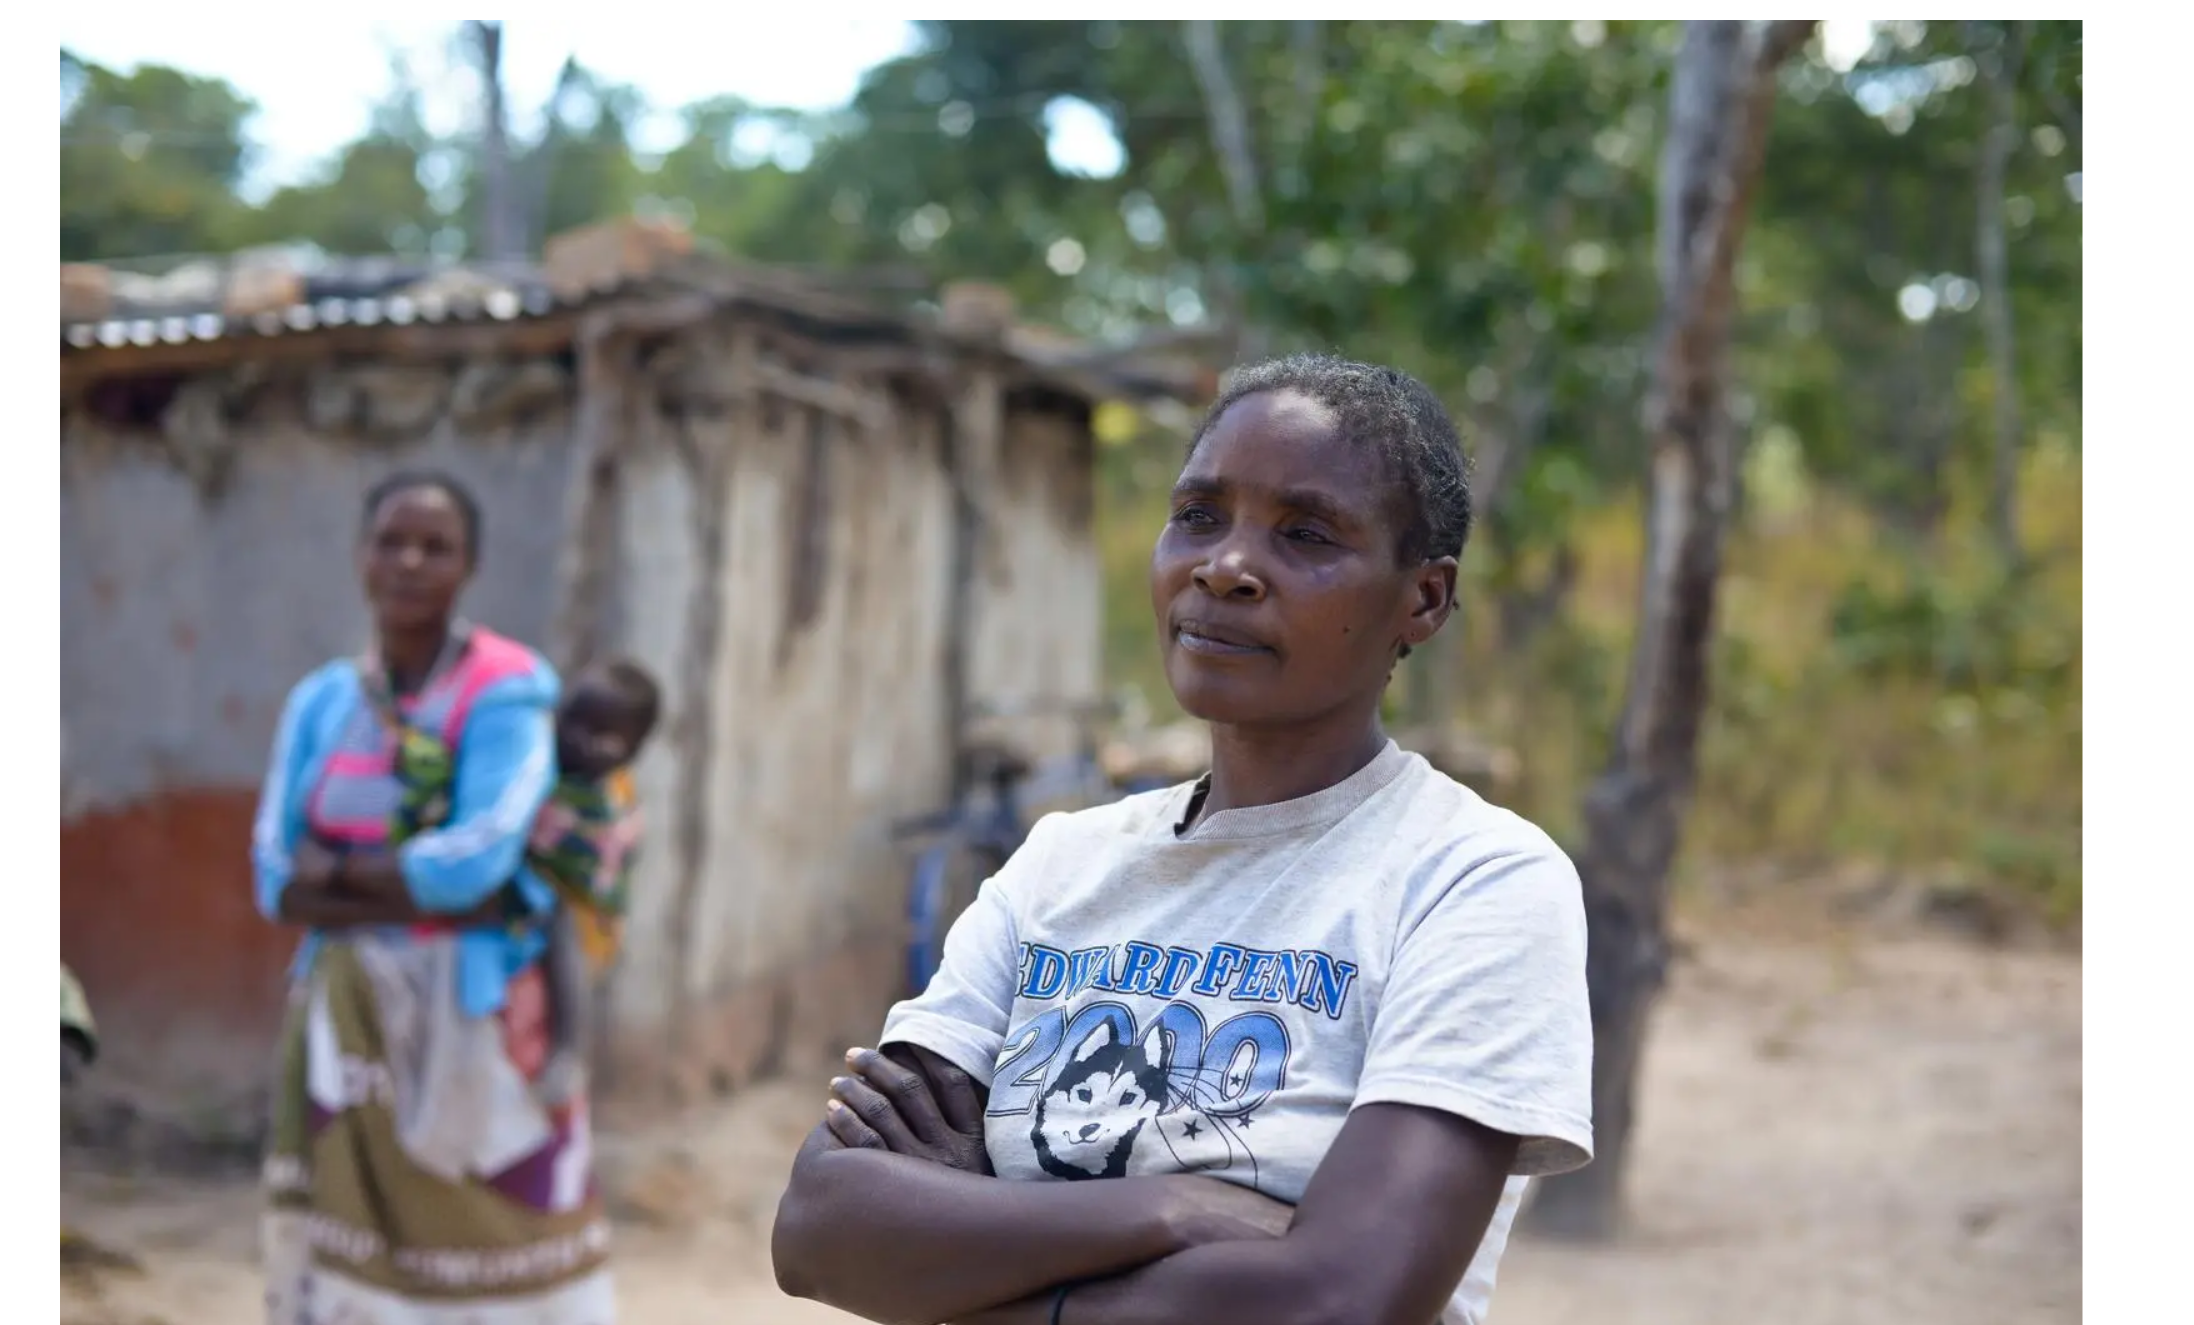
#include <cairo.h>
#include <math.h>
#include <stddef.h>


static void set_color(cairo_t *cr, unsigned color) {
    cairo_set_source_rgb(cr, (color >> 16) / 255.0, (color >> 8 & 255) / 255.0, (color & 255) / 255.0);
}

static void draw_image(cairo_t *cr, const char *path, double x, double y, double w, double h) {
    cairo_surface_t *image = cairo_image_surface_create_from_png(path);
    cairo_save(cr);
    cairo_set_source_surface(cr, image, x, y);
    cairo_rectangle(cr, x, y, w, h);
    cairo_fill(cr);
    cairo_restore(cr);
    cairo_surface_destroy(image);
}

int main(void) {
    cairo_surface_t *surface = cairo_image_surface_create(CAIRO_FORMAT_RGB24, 2194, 1325);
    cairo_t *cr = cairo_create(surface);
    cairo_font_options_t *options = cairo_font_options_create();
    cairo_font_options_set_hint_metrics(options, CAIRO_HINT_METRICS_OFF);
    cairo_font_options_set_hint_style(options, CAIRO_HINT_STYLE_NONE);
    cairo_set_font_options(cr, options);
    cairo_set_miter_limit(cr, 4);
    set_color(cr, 0xFFFFFF);
    cairo_paint(cr);
    draw_image(cr, "assets/img1.png", 60, 20, 2023, 1305);
    cairo_surface_write_to_png(surface, "output.png");
    cairo_font_options_destroy(options);
    cairo_destroy(cr);
    cairo_surface_destroy(surface);
    return 0;
}
